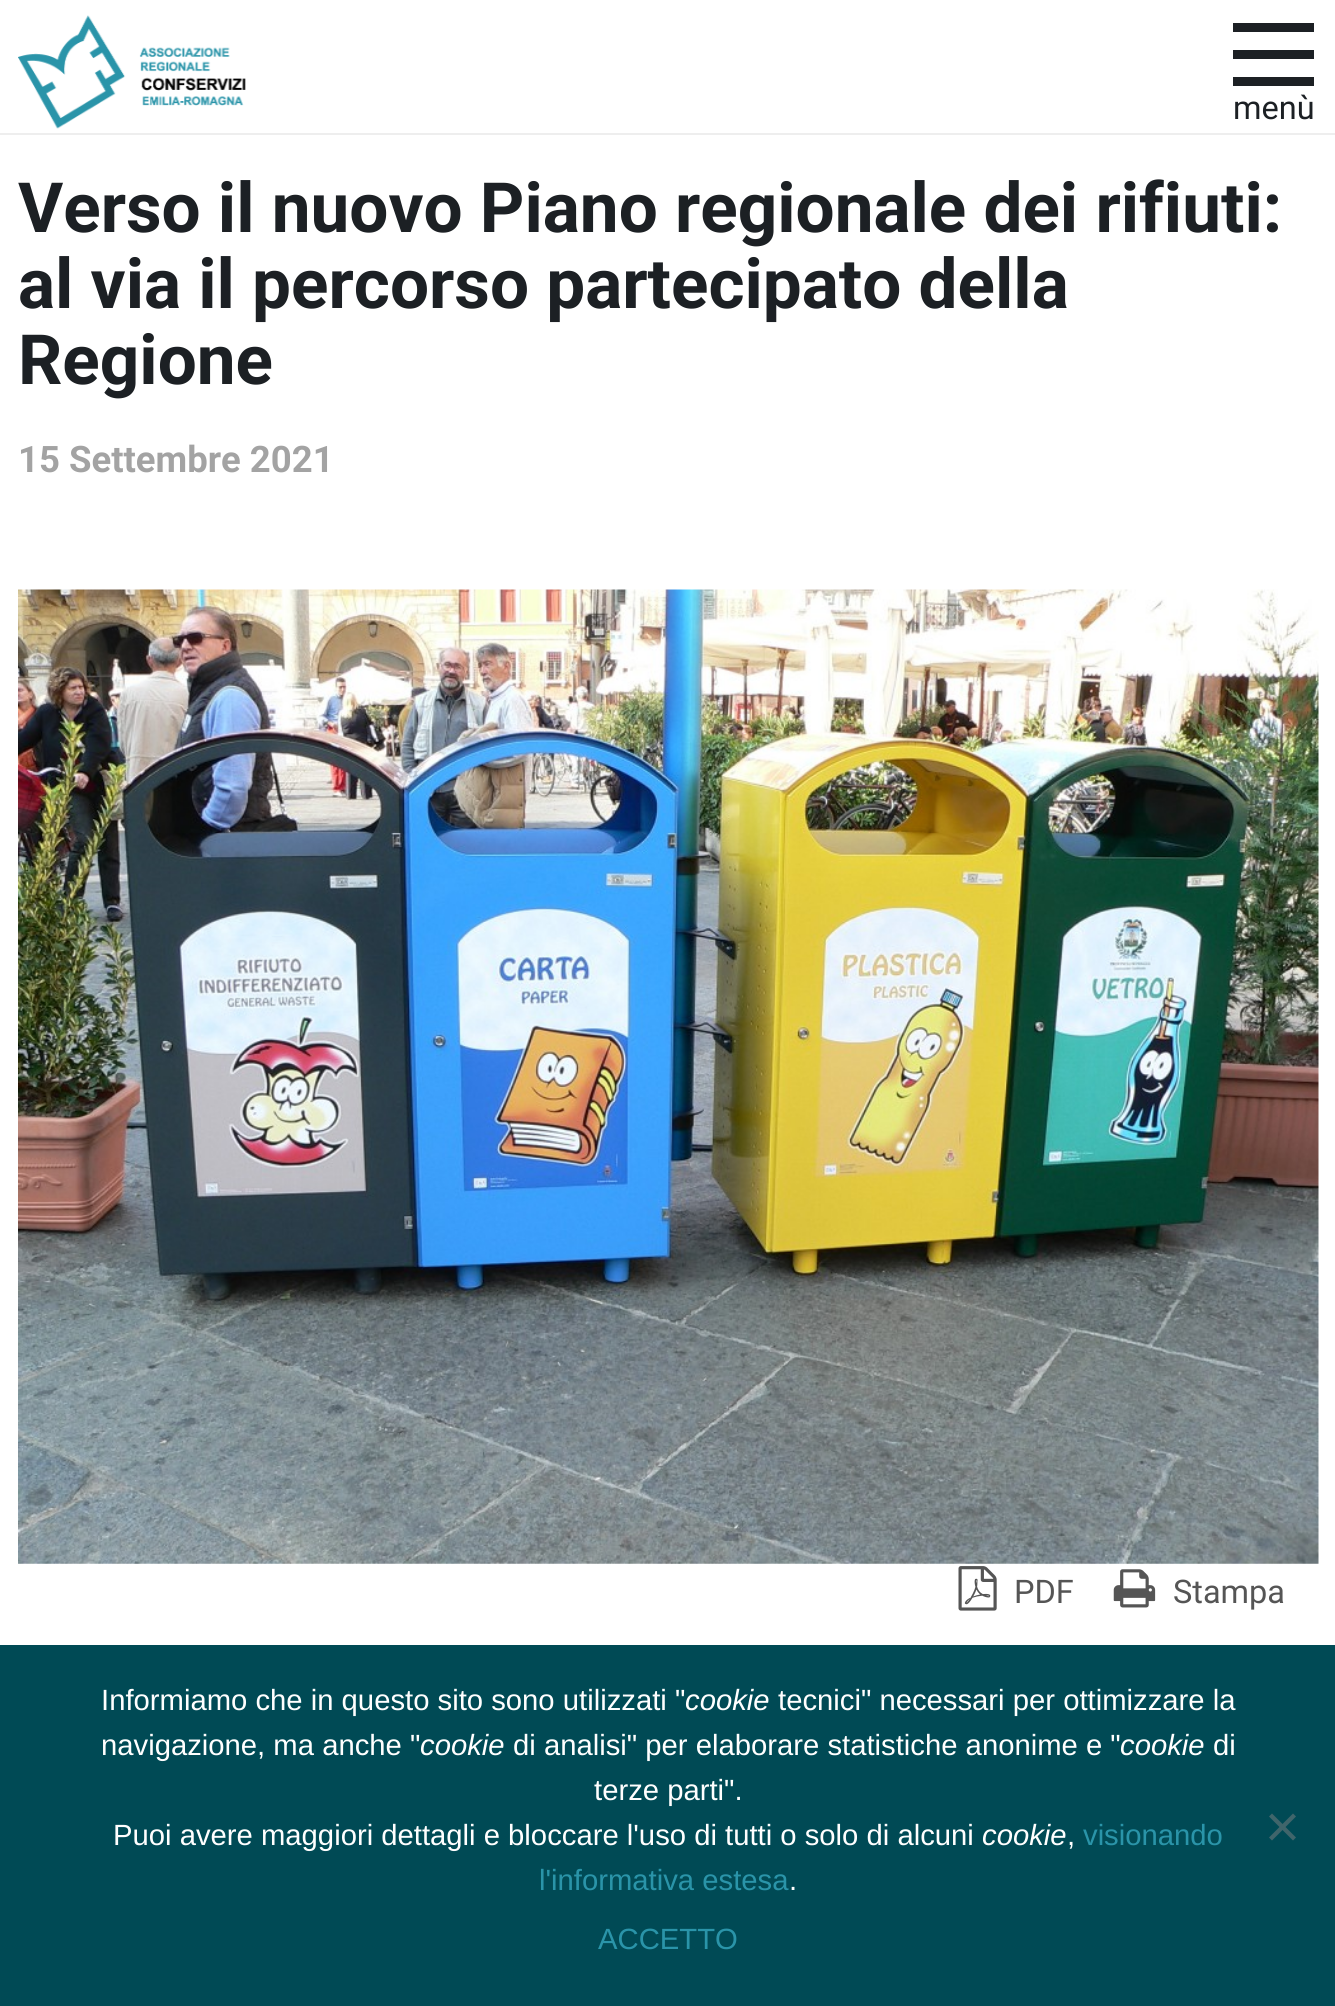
#include <cairo.h>
#include <math.h>
#include <stddef.h>


static void set_color(cairo_t *cr, unsigned color) {
    cairo_set_source_rgb(cr, (color >> 16) / 255.0, (color >> 8 & 255) / 255.0, (color & 255) / 255.0);
}

static void draw_text(cairo_t *cr, double x, double y, const char *s, const char *family, double size, int italic, int bold, unsigned color) {
    cairo_select_font_face(cr, family, italic ? CAIRO_FONT_SLANT_ITALIC : CAIRO_FONT_SLANT_NORMAL,
        bold ? CAIRO_FONT_WEIGHT_BOLD : CAIRO_FONT_WEIGHT_NORMAL);
    cairo_set_font_size(cr, size);
    set_color(cr, color);
    cairo_move_to(cr, x, y);
    cairo_show_text(cr, s);
}

static void fill_rect(cairo_t *cr, double x, double y, double w, double h, unsigned color) {
    set_color(cr, color);
    cairo_rectangle(cr, x, y, w, h);
    cairo_fill(cr);
}

static void draw_image(cairo_t *cr, const char *path, double x, double y, double w, double h) {
    cairo_surface_t *image = cairo_image_surface_create_from_png(path);
    cairo_save(cr);
    cairo_set_source_surface(cr, image, x, y);
    cairo_rectangle(cr, x, y, w, h);
    cairo_fill(cr);
    cairo_restore(cr);
    cairo_surface_destroy(image);
}

int main(void) {
    cairo_surface_t *surface = cairo_image_surface_create(CAIRO_FORMAT_RGB24, 1335, 2006);
    cairo_t *cr = cairo_create(surface);
    cairo_font_options_t *options = cairo_font_options_create();
    cairo_font_options_set_hint_metrics(options, CAIRO_HINT_METRICS_OFF);
    cairo_font_options_set_hint_style(options, CAIRO_HINT_STYLE_NONE);
    cairo_set_font_options(cr, options);
    cairo_set_miter_limit(cr, 4);
    set_color(cr, 0xFFFFFF);
    cairo_paint(cr);
    fill_rect(cr, 0, 133, 1335, 2, 0xEEEEEE);
    draw_image(cr, "assets/img1.png", 18, 15, 228, 114);
    fill_rect(cr, 1233, 50, 81, 9, 0x1C2024);
    fill_rect(cr, 1233, 23, 81, 9, 0x1C2024);
    fill_rect(cr, 1233, 77, 81, 9, 0x1C2024);
    draw_text(cr, 1233, 119, "menù", "Roboto", 32.5, 0, 0, 0x1C2024);
    draw_text(cr, 18, 232, "Verso il nuovo Piano regionale dei rifiuti:", "Roboto", 69.25, 0, 1, 0x1C2024);
    draw_text(cr, 18, 308, "al via il percorso partecipato della", "Roboto", 69.25, 0, 1, 0x1C2024);
    draw_text(cr, 18, 384, "Regione", "Roboto", 69.25, 0, 1, 0x1C2024);
    draw_text(cr, 18, 472, "15 Settembre 2021", "Roboto", 36.5, 0, 1, 0xA3A3A3);
    draw_image(cr, "assets/img2.png", 18, 589, 1301, 975);
    draw_image(cr, "assets/img3.png", 958, 1566, 39, 45);
    draw_text(cr, 1014, 1603, "PDF", "Roboto", 32.5, 0, 0, 0x555555);
    draw_image(cr, "assets/img4.png", 1113, 1569, 43, 39);
    draw_text(cr, 1173, 1603, "Stampa", "Roboto", 32.5, 0, 0, 0x555555);
    fill_rect(cr, 0, 1645, 1335, 361, 0x004A55);
    draw_text(cr, 101, 1710, "Informiamo che in questo sito sono utilizzati \"", "Liberation Sans", 29.25, 0, 0, 0xFFFFFF);
    draw_text(cr, 685, 1710, "cookie", "Liberation Sans", 29.25, 1, 0, 0xFFFFFF);
    draw_text(cr, 778, 1710, "tecnici\" necessari per ottimizzare la", "Liberation Sans", 29.25, 0, 0, 0xFFFFFF);
    draw_text(cr, 101, 1755, "navigazione, ma anche \"", "Liberation Sans", 29.25, 0, 0, 0xFFFFFF);
    draw_text(cr, 420, 1755, "cookie", "Liberation Sans", 29.25, 1, 0, 0xFFFFFF);
    draw_text(cr, 513, 1755, "di analisi\" per elaborare statistiche anonime e \"", "Liberation Sans", 29.25, 0, 0, 0xFFFFFF);
    draw_text(cr, 1120, 1755, "cookie", "Liberation Sans", 29.25, 1, 0, 0xFFFFFF);
    draw_text(cr, 1213, 1755, "di", "Liberation Sans", 29.25, 0, 0, 0xFFFFFF);
    draw_text(cr, 594, 1800, "terze parti\".", "Liberation Sans", 29.25, 0, 0, 0xFFFFFF);
    draw_text(cr, 113, 1845, "Puoi avere maggiori dettagli e bloccare l'uso di tutti o solo di alcuni", "Liberation Sans", 29.25, 0, 0, 0xFFFFFF);
    draw_text(cr, 982, 1845, "cookie", "Liberation Sans", 29.25, 1, 0, 0xFFFFFF);
    draw_text(cr, 1067, 1845, ",", "Liberation Sans", 29.25, 0, 0, 0xFFFFFF);
    draw_text(cr, 1083, 1845, "visionando", "Liberation Sans", 29.25, 0, 0, 0x2A94A9);
    draw_text(cr, 539, 1890, "l'informativa estesa", "Liberation Sans", 29.25, 0, 0, 0x2A94A9);
    draw_text(cr, 789, 1890, ".", "Liberation Sans", 29.25, 0, 0, 0xFFFFFF);
    set_color(cr, 0x40656B);
    cairo_new_path(cr);
    cairo_move_to(cr, 1293, 1813.5);
    cairo_line_to(cr, 1296, 1816.5);
    cairo_line_to(cr, 1272, 1840.5);
    cairo_line_to(cr, 1269, 1837.5);
    cairo_close_path(cr);
    cairo_fill(cr);
    cairo_new_path(cr);
    cairo_move_to(cr, 1269, 1816.5);
    cairo_line_to(cr, 1272, 1813.5);
    cairo_line_to(cr, 1296, 1837.5);
    cairo_line_to(cr, 1293, 1840.5);
    cairo_close_path(cr);
    cairo_fill(cr);
    draw_text(cr, 598, 1949, "ACCETTO", "Liberation Sans", 29.25, 0, 0, 0x2A94A9);
    cairo_surface_write_to_png(surface, "output.png");
    cairo_font_options_destroy(options);
    cairo_destroy(cr);
    cairo_surface_destroy(surface);
    return 0;
}
